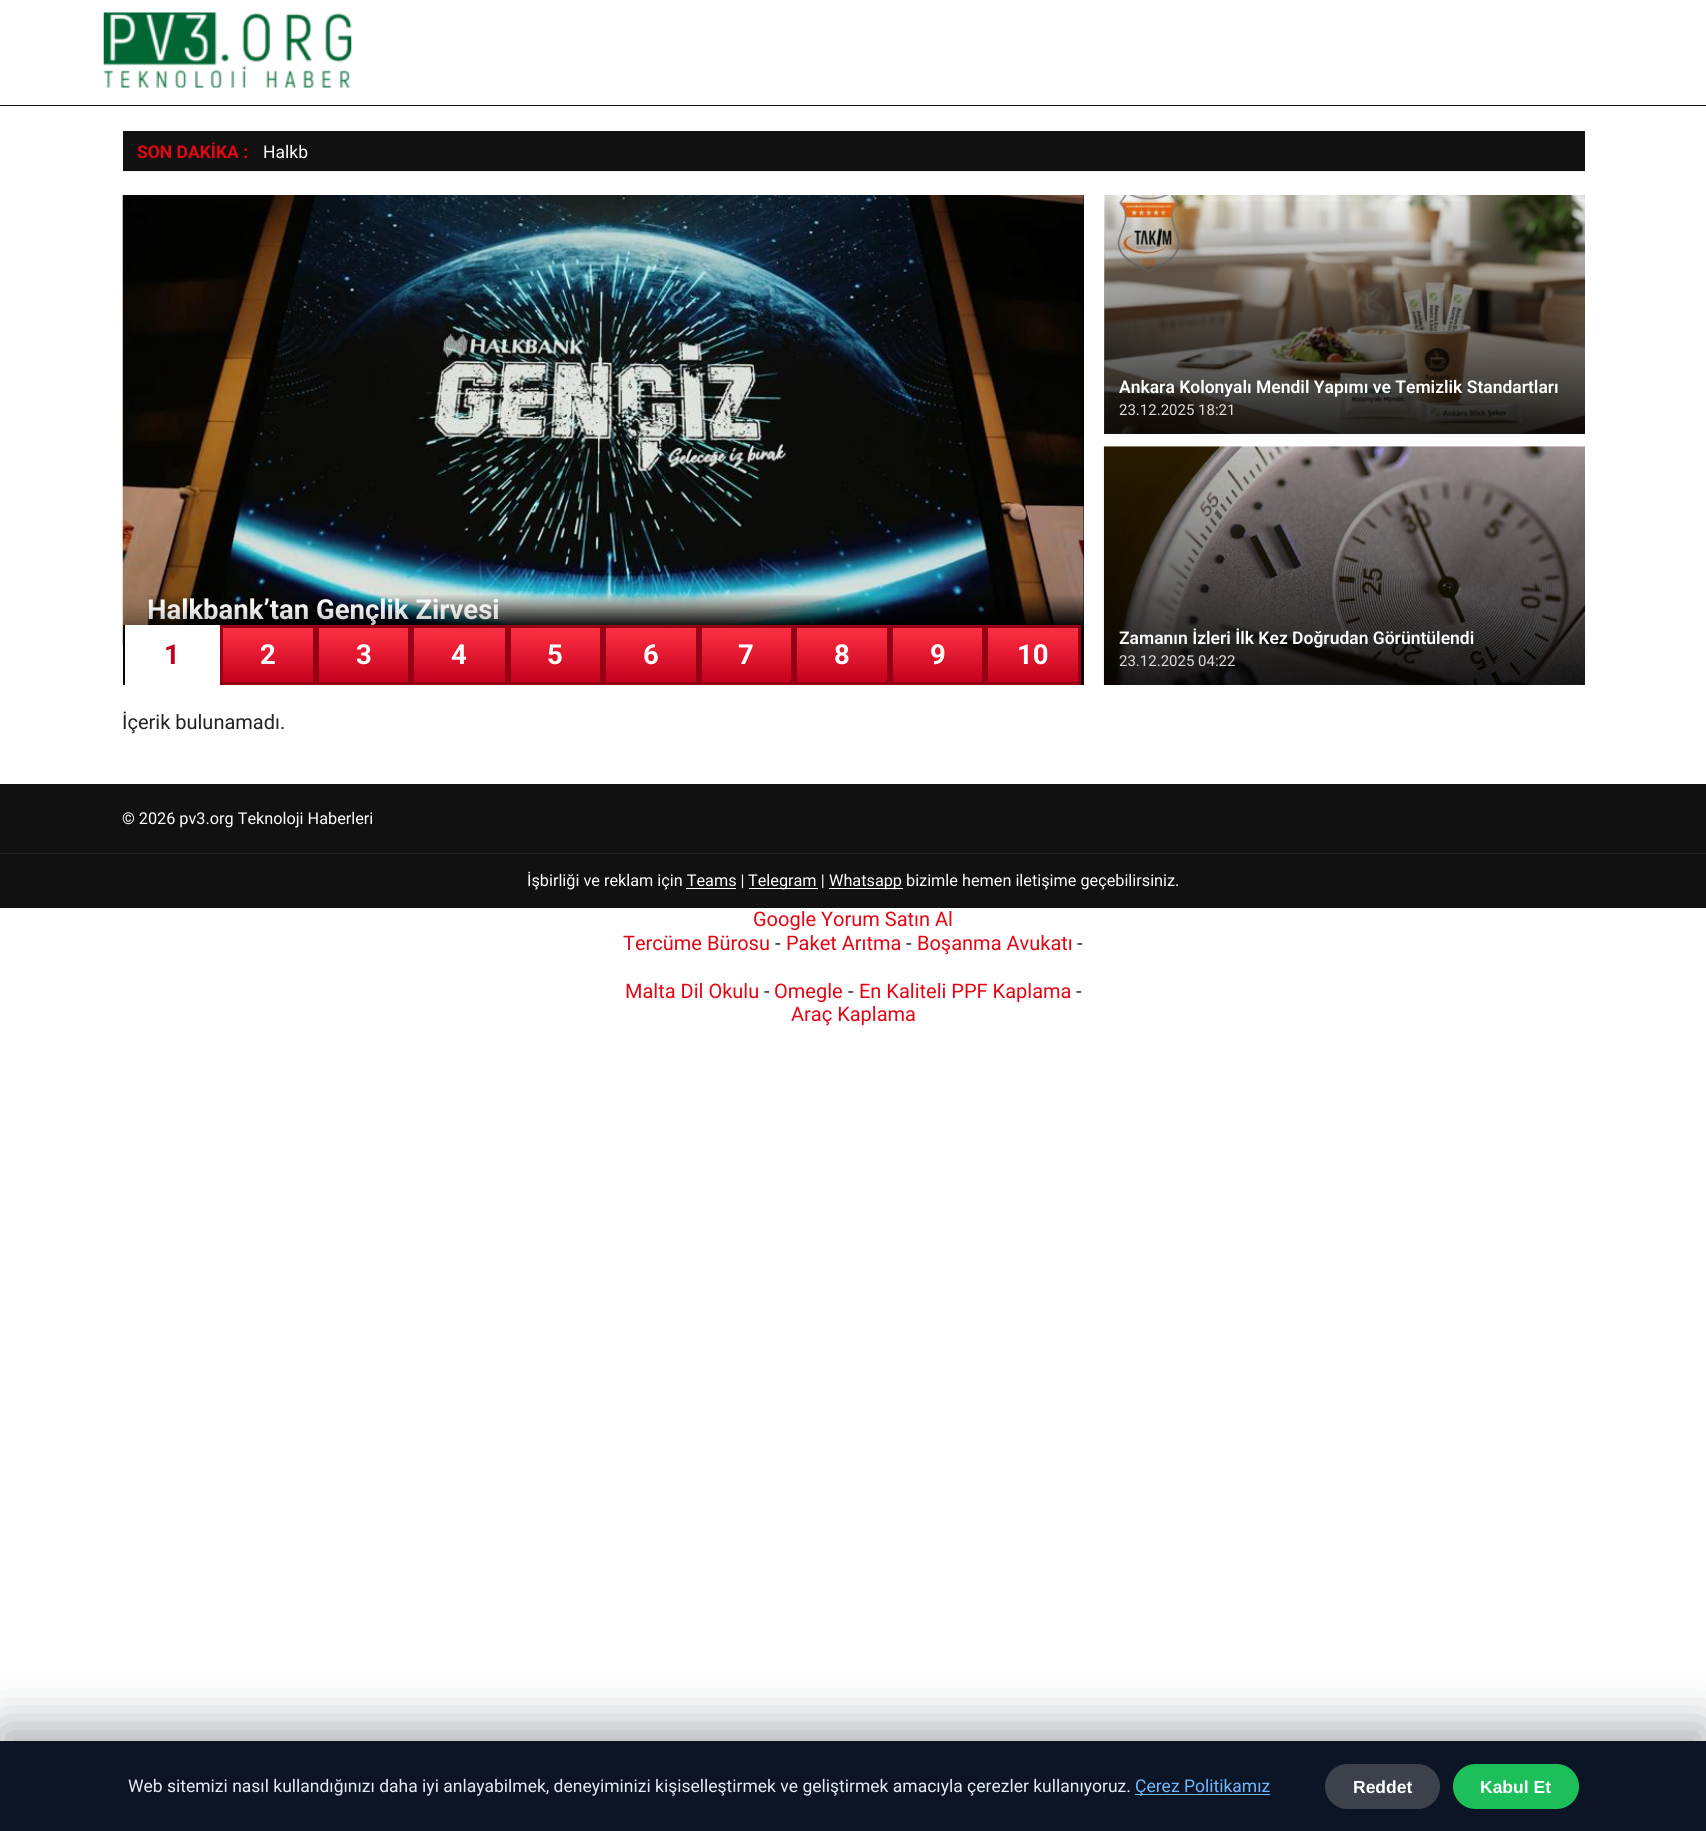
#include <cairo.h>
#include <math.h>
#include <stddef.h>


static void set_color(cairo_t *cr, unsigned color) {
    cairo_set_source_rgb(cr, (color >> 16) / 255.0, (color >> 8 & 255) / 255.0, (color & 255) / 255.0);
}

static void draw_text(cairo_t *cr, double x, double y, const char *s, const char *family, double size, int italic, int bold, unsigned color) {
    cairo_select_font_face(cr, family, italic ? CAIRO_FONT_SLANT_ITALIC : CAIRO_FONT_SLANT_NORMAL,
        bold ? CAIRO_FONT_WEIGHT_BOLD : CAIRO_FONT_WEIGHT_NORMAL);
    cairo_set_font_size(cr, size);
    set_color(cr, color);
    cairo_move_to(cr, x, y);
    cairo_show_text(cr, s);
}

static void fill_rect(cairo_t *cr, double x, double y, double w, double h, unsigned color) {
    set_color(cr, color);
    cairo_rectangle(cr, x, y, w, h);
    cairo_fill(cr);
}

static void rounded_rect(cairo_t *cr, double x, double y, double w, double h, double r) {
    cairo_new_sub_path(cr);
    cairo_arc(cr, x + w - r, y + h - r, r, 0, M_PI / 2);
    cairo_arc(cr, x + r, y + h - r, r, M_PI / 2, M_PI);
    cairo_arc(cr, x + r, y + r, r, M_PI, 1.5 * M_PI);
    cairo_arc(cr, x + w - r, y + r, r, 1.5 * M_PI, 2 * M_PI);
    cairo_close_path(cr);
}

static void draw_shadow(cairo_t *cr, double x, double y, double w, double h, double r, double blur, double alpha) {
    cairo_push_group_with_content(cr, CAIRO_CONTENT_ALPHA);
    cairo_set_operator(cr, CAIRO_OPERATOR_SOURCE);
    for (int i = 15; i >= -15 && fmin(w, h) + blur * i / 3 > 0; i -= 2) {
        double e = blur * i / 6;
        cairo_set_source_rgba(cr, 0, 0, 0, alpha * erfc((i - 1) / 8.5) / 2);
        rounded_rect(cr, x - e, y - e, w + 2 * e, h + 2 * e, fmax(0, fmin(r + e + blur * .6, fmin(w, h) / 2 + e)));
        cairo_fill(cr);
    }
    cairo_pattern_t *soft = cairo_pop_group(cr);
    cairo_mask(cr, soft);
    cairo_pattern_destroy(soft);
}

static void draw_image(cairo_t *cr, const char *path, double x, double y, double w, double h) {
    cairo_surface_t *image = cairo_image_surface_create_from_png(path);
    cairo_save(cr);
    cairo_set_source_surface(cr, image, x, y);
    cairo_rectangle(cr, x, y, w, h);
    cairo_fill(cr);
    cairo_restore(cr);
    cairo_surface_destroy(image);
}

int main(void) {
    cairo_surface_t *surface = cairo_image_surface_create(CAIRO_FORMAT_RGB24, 1706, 1831);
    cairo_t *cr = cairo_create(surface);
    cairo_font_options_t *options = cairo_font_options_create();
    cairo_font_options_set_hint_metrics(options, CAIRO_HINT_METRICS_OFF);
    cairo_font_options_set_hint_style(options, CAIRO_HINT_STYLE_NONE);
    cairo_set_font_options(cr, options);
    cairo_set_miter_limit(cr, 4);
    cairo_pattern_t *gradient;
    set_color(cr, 0xFFFFFF);
    cairo_paint(cr);
    draw_image(cr, "assets/img1.png", 103, 12, 249, 76);
    fill_rect(cr, 0, 105, 1706, 1, 0x111111);
    fill_rect(cr, 123, 171, 1462, 1, 0xEDEDED);
    fill_rect(cr, 123, 131, 1462, 40, 0x111111);
    draw_text(cr, 137, 158, "SON DAKİKA :", "Roboto", 17.5, 0, 1, 0xE30613);
    draw_text(cr, 263, 158, "Halkb", "Roboto", 17.5, 0, 0, 0xFFFFFF);
    fill_rect(cr, 1083, 195, 1, 430, 0x000000);
    draw_image(cr, "assets/img2.png", 122, 195, 962, 450);
    gradient = cairo_pattern_create_linear(616, 625, 616, 594);
    cairo_pattern_add_color_stop_rgba(gradient, 0, 0, 0, 0, 0.85);
    cairo_pattern_add_color_stop_rgba(gradient, 1, 0, 0, 0, 0);
    cairo_set_source(cr, gradient);
    cairo_pattern_destroy(gradient);
    cairo_rectangle(cr, 148, 595, 936, 30);
    cairo_fill(cr);
    draw_text(cr, 147, 619, "Halkbank’tan Gençlik Zirvesi", "Roboto", 27.5, 0, 1, 0xFFFFFF);
    draw_image(cr, "assets/img4.png", 1103, 446, 482, 239);
    gradient = cairo_pattern_create_linear(1344, 685, 1344, 446);
    cairo_pattern_add_color_stop_rgba(gradient, 0, 0, 0, 0, 0.85);
    cairo_pattern_add_color_stop_rgba(gradient, 1, 0, 0, 0, 0);
    cairo_set_source(cr, gradient);
    cairo_pattern_destroy(gradient);
    cairo_rectangle(cr, 1104, 452, 481, 233);
    cairo_fill(cr);
    cairo_save(cr);
    cairo_rectangle(cr, 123, 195, 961, 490);
    cairo_clip(cr);
    set_color(cr, 0x000000);
    draw_shadow(cr, 123, 618, 961, 60, 0, 11, 0.35);
    cairo_restore(cr);
    fill_rect(cr, 123, 625, 961, 60, 0x050505);
    fill_rect(cr, 125, 625, 95, 60, 0xFFFFFF);
    draw_text(cr, 164, 664, "1", "Roboto", 27.5, 0, 1, 0xC4001D);
    gradient = cairo_pattern_create_linear(268, 628, 268, 683);
    cairo_pattern_add_color_stop_rgba(gradient, 0, 1, 0.188, 0.263, 1);
    cairo_pattern_add_color_stop_rgba(gradient, 1, 0.769, 0, 0.114, 1);
    cairo_set_source(cr, gradient);
    cairo_pattern_destroy(gradient);
    cairo_rectangle(cr, 223, 628, 90, 54);
    cairo_fill(cr);
    cairo_rectangle(cr, 221.5, 626.5, 93, 57);
    set_color(cr, 0x950014);
    cairo_set_line_width(cr, 3);
    cairo_stroke(cr);
    draw_text(cr, 260, 664, "2", "Roboto", 27.5, 0, 1, 0xFFFFFF);
    gradient = cairo_pattern_create_linear(364, 628, 364, 683);
    cairo_pattern_add_color_stop_rgba(gradient, 0, 1, 0.188, 0.263, 1);
    cairo_pattern_add_color_stop_rgba(gradient, 1, 0.769, 0, 0.114, 1);
    cairo_set_source(cr, gradient);
    cairo_pattern_destroy(gradient);
    cairo_rectangle(cr, 319, 628, 89, 54);
    cairo_fill(cr);
    cairo_rectangle(cr, 317.5, 626.5, 92, 57);
    set_color(cr, 0x950014);
    cairo_stroke(cr);
    draw_text(cr, 356, 664, "3", "Roboto", 27.5, 0, 1, 0xFFFFFF);
    gradient = cairo_pattern_create_linear(459, 628, 459, 683);
    cairo_pattern_add_color_stop_rgba(gradient, 0, 1, 0.188, 0.263, 1);
    cairo_pattern_add_color_stop_rgba(gradient, 1, 0.769, 0, 0.114, 1);
    cairo_set_source(cr, gradient);
    cairo_pattern_destroy(gradient);
    cairo_rectangle(cr, 414, 628, 91, 54);
    cairo_fill(cr);
    cairo_rectangle(cr, 412.5, 626.5, 94, 57);
    set_color(cr, 0x950014);
    cairo_stroke(cr);
    draw_text(cr, 451, 664, "4", "Roboto", 27.5, 0, 1, 0xFFFFFF);
    gradient = cairo_pattern_create_linear(555, 628, 555, 683);
    cairo_pattern_add_color_stop_rgba(gradient, 0, 1, 0.188, 0.263, 1);
    cairo_pattern_add_color_stop_rgba(gradient, 1, 0.769, 0, 0.114, 1);
    cairo_set_source(cr, gradient);
    cairo_pattern_destroy(gradient);
    cairo_rectangle(cr, 511, 628, 89, 54);
    cairo_fill(cr);
    cairo_rectangle(cr, 509.5, 626.5, 92, 57);
    set_color(cr, 0x950014);
    cairo_stroke(cr);
    draw_text(cr, 547, 664, "5", "Roboto", 27.5, 0, 1, 0xFFFFFF);
    gradient = cairo_pattern_create_linear(651, 628, 651, 683);
    cairo_pattern_add_color_stop_rgba(gradient, 0, 1, 0.188, 0.263, 1);
    cairo_pattern_add_color_stop_rgba(gradient, 1, 0.769, 0, 0.114, 1);
    cairo_set_source(cr, gradient);
    cairo_pattern_destroy(gradient);
    cairo_rectangle(cr, 606, 628, 90, 54);
    cairo_fill(cr);
    cairo_rectangle(cr, 604.5, 626.5, 93, 57);
    set_color(cr, 0x950014);
    cairo_stroke(cr);
    draw_text(cr, 643, 664, "6", "Roboto", 27.5, 0, 1, 0xFFFFFF);
    gradient = cairo_pattern_create_linear(746, 628, 746, 683);
    cairo_pattern_add_color_stop_rgba(gradient, 0, 1, 0.188, 0.263, 1);
    cairo_pattern_add_color_stop_rgba(gradient, 1, 0.769, 0, 0.114, 1);
    cairo_set_source(cr, gradient);
    cairo_pattern_destroy(gradient);
    cairo_rectangle(cr, 702, 628, 89, 54);
    cairo_fill(cr);
    cairo_rectangle(cr, 700.5, 626.5, 92, 57);
    set_color(cr, 0x950014);
    cairo_stroke(cr);
    draw_text(cr, 738, 664, "7", "Roboto", 27.5, 0, 1, 0xFFFFFF);
    gradient = cairo_pattern_create_linear(842, 628, 842, 683);
    cairo_pattern_add_color_stop_rgba(gradient, 0, 1, 0.188, 0.263, 1);
    cairo_pattern_add_color_stop_rgba(gradient, 1, 0.769, 0, 0.114, 1);
    cairo_set_source(cr, gradient);
    cairo_pattern_destroy(gradient);
    cairo_rectangle(cr, 797, 628, 90, 54);
    cairo_fill(cr);
    cairo_rectangle(cr, 795.5, 626.5, 93, 57);
    set_color(cr, 0x950014);
    cairo_stroke(cr);
    draw_text(cr, 834, 664, "8", "Roboto", 27.5, 0, 1, 0xFFFFFF);
    gradient = cairo_pattern_create_linear(938, 628, 938, 683);
    cairo_pattern_add_color_stop_rgba(gradient, 0, 1, 0.188, 0.263, 1);
    cairo_pattern_add_color_stop_rgba(gradient, 1, 0.769, 0, 0.114, 1);
    cairo_set_source(cr, gradient);
    cairo_pattern_destroy(gradient);
    cairo_rectangle(cr, 893, 628, 89, 54);
    cairo_fill(cr);
    cairo_rectangle(cr, 891.5, 626.5, 92, 57);
    set_color(cr, 0x950014);
    cairo_stroke(cr);
    draw_text(cr, 930, 664, "9", "Roboto", 27.5, 0, 1, 0xFFFFFF);
    gradient = cairo_pattern_create_linear(1033, 628, 1033, 683);
    cairo_pattern_add_color_stop_rgba(gradient, 0, 1, 0.188, 0.263, 1);
    cairo_pattern_add_color_stop_rgba(gradient, 1, 0.769, 0, 0.114, 1);
    cairo_set_source(cr, gradient);
    cairo_pattern_destroy(gradient);
    cairo_rectangle(cr, 988, 628, 90, 54);
    cairo_fill(cr);
    cairo_rectangle(cr, 986.5, 626.5, 93, 57);
    set_color(cr, 0x950014);
    cairo_stroke(cr);
    draw_text(cr, 1017, 664, "10", "Roboto", 27.5, 0, 1, 0xFFFFFF);
    draw_image(cr, "assets/img3.png", 1104, 195, 481, 239);
    gradient = cairo_pattern_create_linear(1344, 434, 1344, 195);
    cairo_pattern_add_color_stop_rgba(gradient, 0, 0, 0, 0, 0.85);
    cairo_pattern_add_color_stop_rgba(gradient, 1, 0, 0, 0, 0);
    cairo_set_source(cr, gradient);
    cairo_pattern_destroy(gradient);
    cairo_rectangle(cr, 1104, 201, 481, 233);
    cairo_fill(cr);
    draw_text(cr, 1119, 393, "Ankara Kolonyalı Mendil Yapımı ve Temizlik Standartları", "Roboto SemiBold", 17.5, 0, 0, 0xFFFFFF);
    draw_text(cr, 1119, 415, "23.12.2025 18:21", "Roboto", 15, 0, 0, 0xDDDCDB);
    draw_text(cr, 1119, 644, "Zamanın İzleri İlk Kez Doğrudan Görüntülendi", "Roboto SemiBold", 17.5, 0, 0, 0xFFFFFF);
    draw_text(cr, 1119, 666, "23.12.2025 04:22", "Roboto", 15, 0, 0, 0xDDDCDB);
    draw_text(cr, 122, 729, "İçerik bulunamadı.", "Roboto", 20, 0, 0, 0x222222);
    fill_rect(cr, 0, 784, 1706, 69, 0x111111);
    draw_text(cr, 122, 824, "© 2026 pv3.org Teknoloji Haberleri", "Roboto", 16.25, 0, 0, 0xFFFFFF);
    fill_rect(cr, 0, 854, 1706, 54, 0x111111);
    fill_rect(cr, 0, 853, 1706, 1, 0x242424);
    draw_text(cr, 527, 886, "İşbirliği ve reklam için Teams |", "Roboto", 16.25, 0, 0, 0xFFFFFF);
    fill_rect(cr, 749, 888, 69, 1, 0xFFFFFF);
    draw_text(cr, 748, 886, "Telegram |", "Roboto", 16.25, 0, 0, 0xFFFFFF);
    fill_rect(cr, 829, 888, 74, 1, 0xFFFFFF);
    draw_text(cr, 829, 886, "Whatsapp bizimle hemen iletişime geçebilirsiniz.", "Roboto", 16.25, 0, 0, 0xFFFFFF);
    fill_rect(cr, 686, 888, 50, 1, 0xFFFFFF);
    draw_text(cr, 753, 926, "Google Yorum Satın Al", "Roboto", 20, 0, 0, 0xE30613);
    draw_text(cr, 623, 950, "Tercüme Bürosu", "Roboto", 20, 0, 0, 0xE30613);
    draw_text(cr, 775, 950, "-", "Roboto", 20, 0, 0, 0x222222);
    draw_text(cr, 786, 950, "Paket Arıtma", "Roboto", 20, 0, 0, 0xE30613);
    draw_text(cr, 906, 950, "-", "Roboto", 20, 0, 0, 0x222222);
    draw_text(cr, 917, 950, "Boşanma Avukatı", "Roboto", 20, 0, 0, 0xE30613);
    draw_text(cr, 1077, 950, "-", "Roboto", 20, 0, 0, 0x222222);
    draw_text(cr, 625, 998, "Malta Dil Okulu", "Roboto", 20, 0, 0, 0xE30613);
    draw_text(cr, 764, 998, "-", "Roboto", 20, 0, 0, 0x222222);
    draw_text(cr, 774, 998, "Omegle", "Roboto", 20, 0, 0, 0xE30613);
    draw_text(cr, 848, 998, "-", "Roboto", 20, 0, 0, 0x222222);
    draw_text(cr, 859, 998, "En Kaliteli PPF Kaplama", "Roboto", 20, 0, 0, 0xE30613);
    draw_text(cr, 1076, 998, "-", "Roboto", 20, 0, 0, 0x222222);
    draw_text(cr, 791, 1021, "Araç Kaplama", "Roboto", 20, 0, 0, 0xE30613);
    set_color(cr, 0x0C1522);
    draw_shadow(cr, 0, 1726, 1706, 90, 0, 25, 0.35);
    fill_rect(cr, 0, 1741, 1706, 90, 0x0B1526);
    draw_text(cr, 128, 1792, "Web sitemizi nasıl kullandığınızı daha iyi anlayabilmek, deneyiminizi kişiselleştirmek ve geliştirmek amacıyla çerezler kullanıyoruz.", "Roboto", 17.5, 0, 0, 0xE7ECF6);
    fill_rect(cr, 1135, 1794, 135, 1, 0x6FB9FF);
    draw_text(cr, 1135, 1792, "Çerez Politikamız", "Roboto", 17.5, 0, 0, 0x6FB9FF);
    set_color(cr, 0x3C414B);
    rounded_rect(cr, 1325, 1764, 115, 45, 22.5);
    cairo_fill(cr);
    draw_text(cr, 1353, 1793, "Reddet", "Liberation Sans", 17.5, 0, 1, 0xFFFFFF);
    set_color(cr, 0x1DBF5B);
    rounded_rect(cr, 1453, 1764, 126, 45, 22.5);
    cairo_fill(cr);
    draw_text(cr, 1480, 1793, "Kabul Et", "Liberation Sans", 17.5, 0, 1, 0xFFFFFF);
    cairo_surface_write_to_png(surface, "output.png");
    cairo_font_options_destroy(options);
    cairo_destroy(cr);
    cairo_surface_destroy(surface);
    return 0;
}
